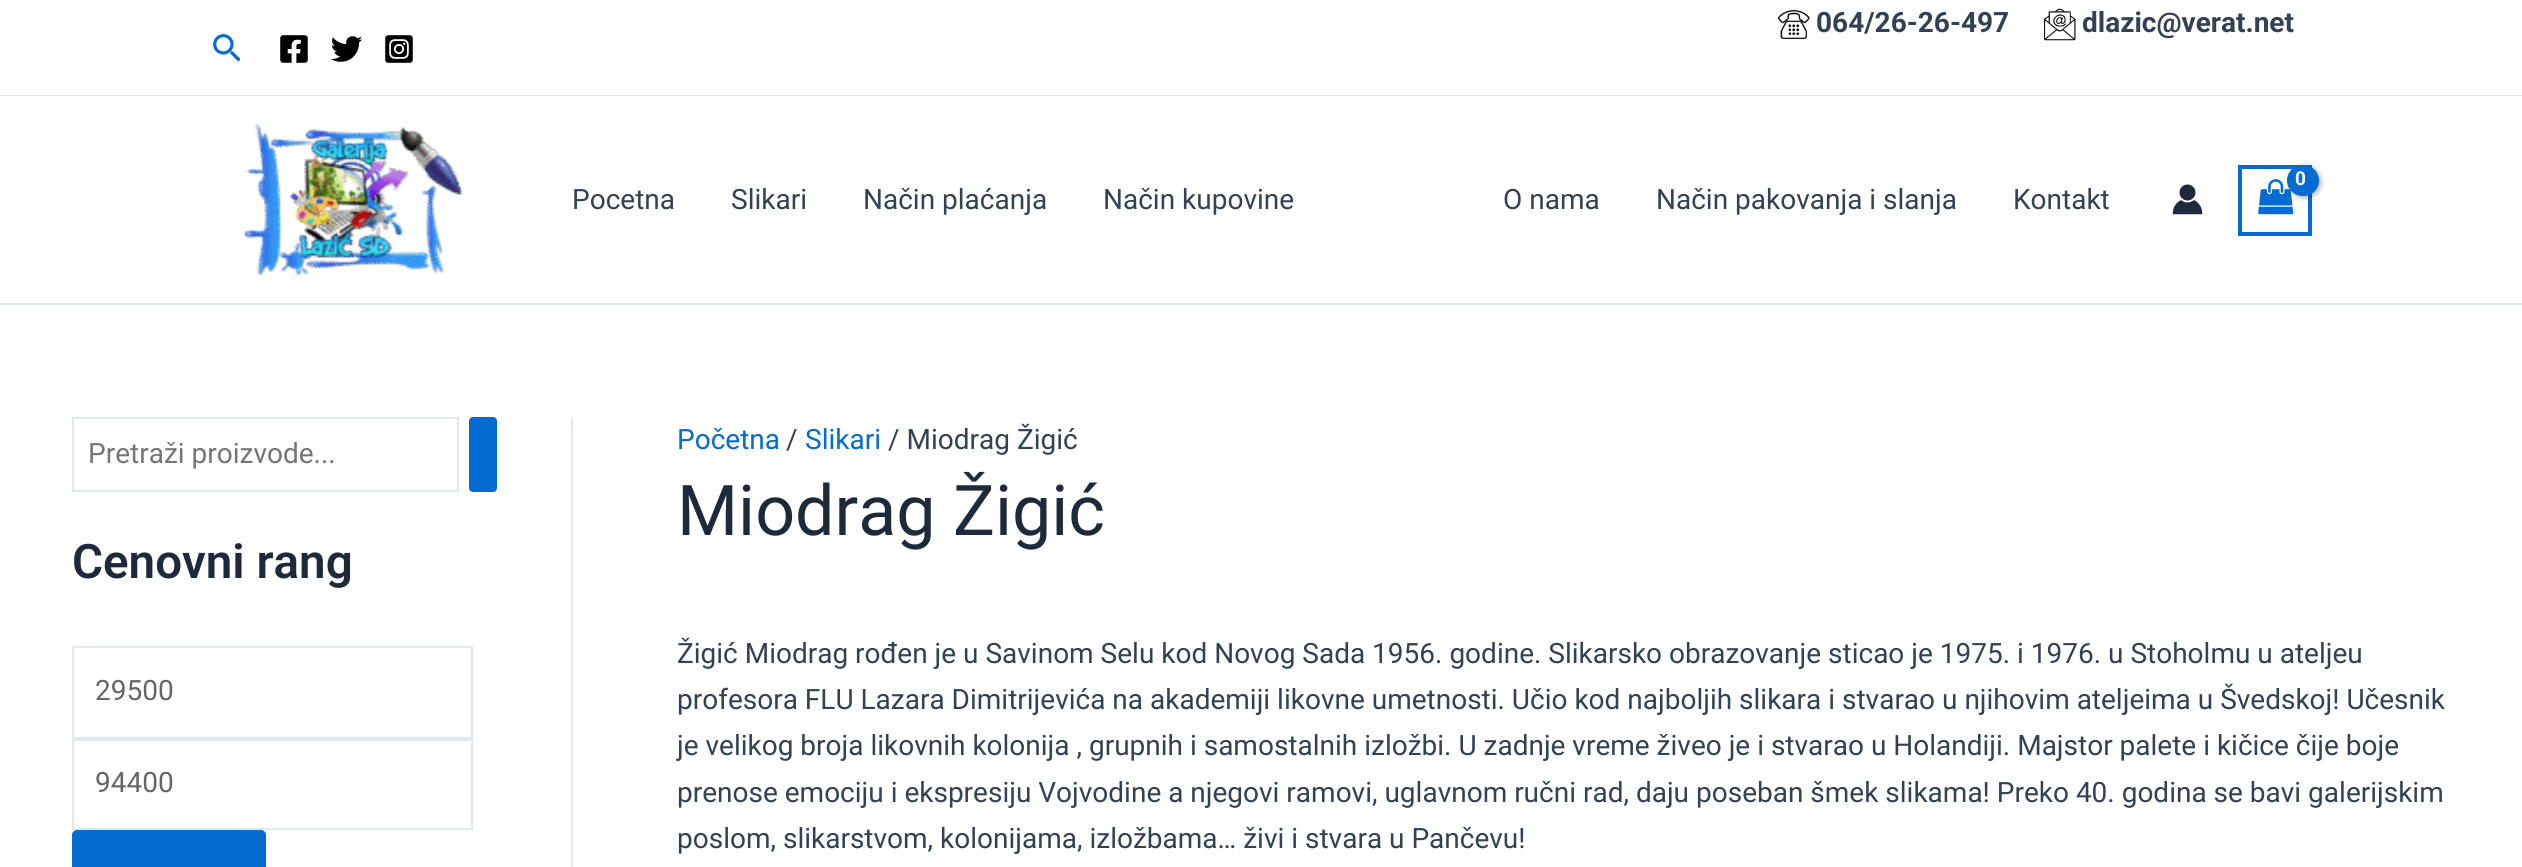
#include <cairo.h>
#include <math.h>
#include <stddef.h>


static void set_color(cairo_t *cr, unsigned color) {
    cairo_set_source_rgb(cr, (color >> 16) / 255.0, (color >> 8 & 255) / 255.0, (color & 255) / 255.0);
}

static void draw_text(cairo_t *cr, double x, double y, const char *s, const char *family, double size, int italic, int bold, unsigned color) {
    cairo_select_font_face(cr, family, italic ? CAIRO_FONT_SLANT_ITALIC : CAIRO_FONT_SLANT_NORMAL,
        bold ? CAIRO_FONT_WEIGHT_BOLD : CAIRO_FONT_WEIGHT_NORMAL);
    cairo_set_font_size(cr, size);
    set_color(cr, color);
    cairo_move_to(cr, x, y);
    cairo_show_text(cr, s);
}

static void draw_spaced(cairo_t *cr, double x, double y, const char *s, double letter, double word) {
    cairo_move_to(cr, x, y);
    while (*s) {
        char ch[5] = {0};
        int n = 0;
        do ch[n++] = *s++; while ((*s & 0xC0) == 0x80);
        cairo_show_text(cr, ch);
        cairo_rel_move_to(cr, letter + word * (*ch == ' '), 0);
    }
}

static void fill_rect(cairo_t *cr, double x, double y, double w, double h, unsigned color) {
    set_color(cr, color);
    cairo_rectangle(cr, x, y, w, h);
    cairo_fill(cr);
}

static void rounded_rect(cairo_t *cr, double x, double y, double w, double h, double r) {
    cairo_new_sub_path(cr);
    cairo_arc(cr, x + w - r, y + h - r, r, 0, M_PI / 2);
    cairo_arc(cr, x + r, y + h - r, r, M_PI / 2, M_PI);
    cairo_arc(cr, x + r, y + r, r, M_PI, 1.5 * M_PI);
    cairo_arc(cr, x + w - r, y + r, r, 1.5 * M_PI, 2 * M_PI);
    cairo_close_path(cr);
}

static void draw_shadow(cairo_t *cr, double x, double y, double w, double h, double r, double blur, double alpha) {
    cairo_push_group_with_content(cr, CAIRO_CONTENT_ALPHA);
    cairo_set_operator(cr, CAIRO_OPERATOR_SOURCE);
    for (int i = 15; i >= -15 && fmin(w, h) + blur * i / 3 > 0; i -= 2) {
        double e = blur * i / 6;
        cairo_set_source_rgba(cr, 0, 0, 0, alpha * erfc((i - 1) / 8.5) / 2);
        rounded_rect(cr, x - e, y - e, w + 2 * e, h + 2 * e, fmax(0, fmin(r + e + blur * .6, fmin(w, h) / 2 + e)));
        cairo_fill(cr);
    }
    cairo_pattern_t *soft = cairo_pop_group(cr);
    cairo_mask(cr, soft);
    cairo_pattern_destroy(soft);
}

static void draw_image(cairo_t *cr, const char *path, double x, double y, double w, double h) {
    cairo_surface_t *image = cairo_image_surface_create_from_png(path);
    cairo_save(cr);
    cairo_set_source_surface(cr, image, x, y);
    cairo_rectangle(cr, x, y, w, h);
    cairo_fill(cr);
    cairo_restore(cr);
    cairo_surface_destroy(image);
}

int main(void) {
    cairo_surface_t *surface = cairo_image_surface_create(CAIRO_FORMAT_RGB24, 2522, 867);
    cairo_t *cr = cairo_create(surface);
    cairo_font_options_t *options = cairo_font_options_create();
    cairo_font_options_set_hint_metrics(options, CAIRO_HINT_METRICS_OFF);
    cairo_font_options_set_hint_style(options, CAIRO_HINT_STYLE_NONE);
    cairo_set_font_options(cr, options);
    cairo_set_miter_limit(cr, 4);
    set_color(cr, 0xFFFFFF);
    cairo_paint(cr);
    fill_rect(cr, 0, 95, 2522, 1, 0xE2E8F0);
    draw_image(cr, "assets/img1.png", 1778, 10, 32, 29);
    draw_text(cr, 1816, 32, "064/26-26-497", "Roboto", 28, 0, 1, 0x334155);
    draw_image(cr, "assets/img2.png", 2044, 8, 32, 33);
    draw_text(cr, 2082, 32, "dlazic@verat.net", "Roboto", 28, 0, 1, 0x334155);
    draw_image(cr, "assets/img3.png", 213, 34, 27, 28);
    draw_image(cr, "assets/img4.png", 280, 35, 28, 28);
    draw_image(cr, "assets/img5.png", 331, 36, 31, 26);
    draw_image(cr, "assets/img6.png", 385, 35, 28, 28);
    fill_rect(cr, 0, 303, 2522, 2, 0xE2E8F0);
    draw_image(cr, "assets/img7.png", 243, 124, 220, 151);
    draw_text(cr, 572, 209, "Pocetna", "Roboto", 28, 0, 0, 0x334155);
    draw_text(cr, 731, 209, "Slikari", "Roboto", 28, 0, 0, 0x334155);
    draw_text(cr, 863, 209, "Način plaćanja", "Roboto", 28, 0, 0, 0x334155);
    draw_text(cr, 1103, 209, "Način kupovine", "Roboto", 28, 0, 0, 0x334155);
    cairo_rectangle(cr, 2240, 167, 70, 67);
    set_color(cr, 0x046BD2);
    cairo_set_line_width(cr, 4);
    cairo_stroke(cr);
    draw_image(cr, "assets/img8.png", 2258, 179, 36, 36);
    set_color(cr, 0x000000);
    draw_shadow(cr, 2289, 166, 32, 32, 16, 2.5, 0.3);
    set_color(cr, 0x046BD2);
    rounded_rect(cr, 2287, 165, 32, 31, 15.5);
    cairo_fill(cr);
    cairo_select_font_face(cr, "Roboto", CAIRO_FONT_SLANT_NORMAL, CAIRO_FONT_WEIGHT_BOLD);
    cairo_set_font_size(cr, 19);
    set_color(cr, 0xFFFFFF);
    draw_spaced(cr, 2295, 185, "0", -1, 0);
    draw_text(cr, 1503, 209, "O nama", "Roboto", 28, 0, 0, 0x334155);
    draw_text(cr, 1656, 209, "Način pakovanja i slanja", "Roboto", 28, 0, 0, 0x334155);
    draw_text(cr, 2013, 209, "Kontakt", "Roboto", 28, 0, 0, 0x334155);
    draw_image(cr, "assets/img9.png", 2172, 184, 31, 31);
    fill_rect(cr, 571, 417, 2, 450, 0xE2E8F0);
    cairo_rectangle(cr, 73, 418, 385, 73);
    cairo_set_line_width(cr, 2);
    cairo_stroke(cr);
    draw_text(cr, 88, 463, "Pretraži proizvode...", "Roboto", 28, 0, 0, 0x757575);
    set_color(cr, 0x046BD2);
    rounded_rect(cr, 469, 417, 28, 75, 4);
    cairo_fill(cr);
    draw_text(cr, 72, 578, "Cenovni rang", "Roboto SemiBold", 47.5, 0, 0, 0x1E293B);
    cairo_rectangle(cr, 73, 647, 399, 91);
    set_color(cr, 0xE2E8F0);
    cairo_stroke(cr);
    draw_text(cr, 95, 700, "29500", "Roboto", 28, 0, 0, 0x666666);
    cairo_rectangle(cr, 73, 740, 399, 89);
    set_color(cr, 0xE2E8F0);
    cairo_stroke(cr);
    draw_text(cr, 95, 792, "94400", "Roboto", 28, 0, 0, 0x666666);
    set_color(cr, 0x046BD2);
    rounded_rect(cr, 72, 830, 194, 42, 5);
    cairo_fill(cr);
    draw_text(cr, 677, 449, "Početna", "Roboto", 28, 0, 0, 0x046BD2);
    draw_text(cr, 786, 449, "/", "Roboto", 28, 0, 0, 0x334155);
    draw_text(cr, 805, 449, "Slikari", "Roboto", 28, 0, 0, 0x046BD2);
    draw_text(cr, 888, 449, "/ Miodrag Žigić", "Roboto", 28, 0, 0, 0x334155);
    draw_text(cr, 677, 535, "Miodrag Žigić", "Roboto", 70, 0, 0, 0x1E293B);
    draw_text(cr, 677, 663, "Žigić Miodrag rođen je u Savinom Selu kod Novog Sada 1956. godine. Slikarsko obrazovanje sticao je 1975. i 1976. u Stoholmu u ateljeu", "Roboto", 28, 0, 0, 0x334155);
    draw_text(cr, 677, 709, "profesora FLU Lazara Dimitrijevića na akademiji likovne umetnosti. Učio kod najboljih slikara i stvarao u njihovim ateljeima u Švedskoj! Učesnik", "Roboto", 28, 0, 0, 0x334155);
    draw_text(cr, 677, 755, "je velikog broja likovnih kolonija , grupnih i samostalnih izložbi. U zadnje vreme živeo je i stvarao u Holandiji. Majstor palete i kičice čije boje", "Roboto", 28, 0, 0, 0x334155);
    draw_text(cr, 677, 802, "prenose emociju i ekspresiju Vojvodine a njegovi ramovi, uglavnom ručni rad, daju poseban šmek slikama! Preko 40. godina se bavi galerijskim", "Roboto", 28, 0, 0, 0x334155);
    draw_text(cr, 677, 848, "poslom, slikarstvom, kolonijama, izložbama… živi i stvara u Pančevu!", "Roboto", 28, 0, 0, 0x334155);
    cairo_surface_write_to_png(surface, "output.png");
    cairo_font_options_destroy(options);
    cairo_destroy(cr);
    cairo_surface_destroy(surface);
    return 0;
}
